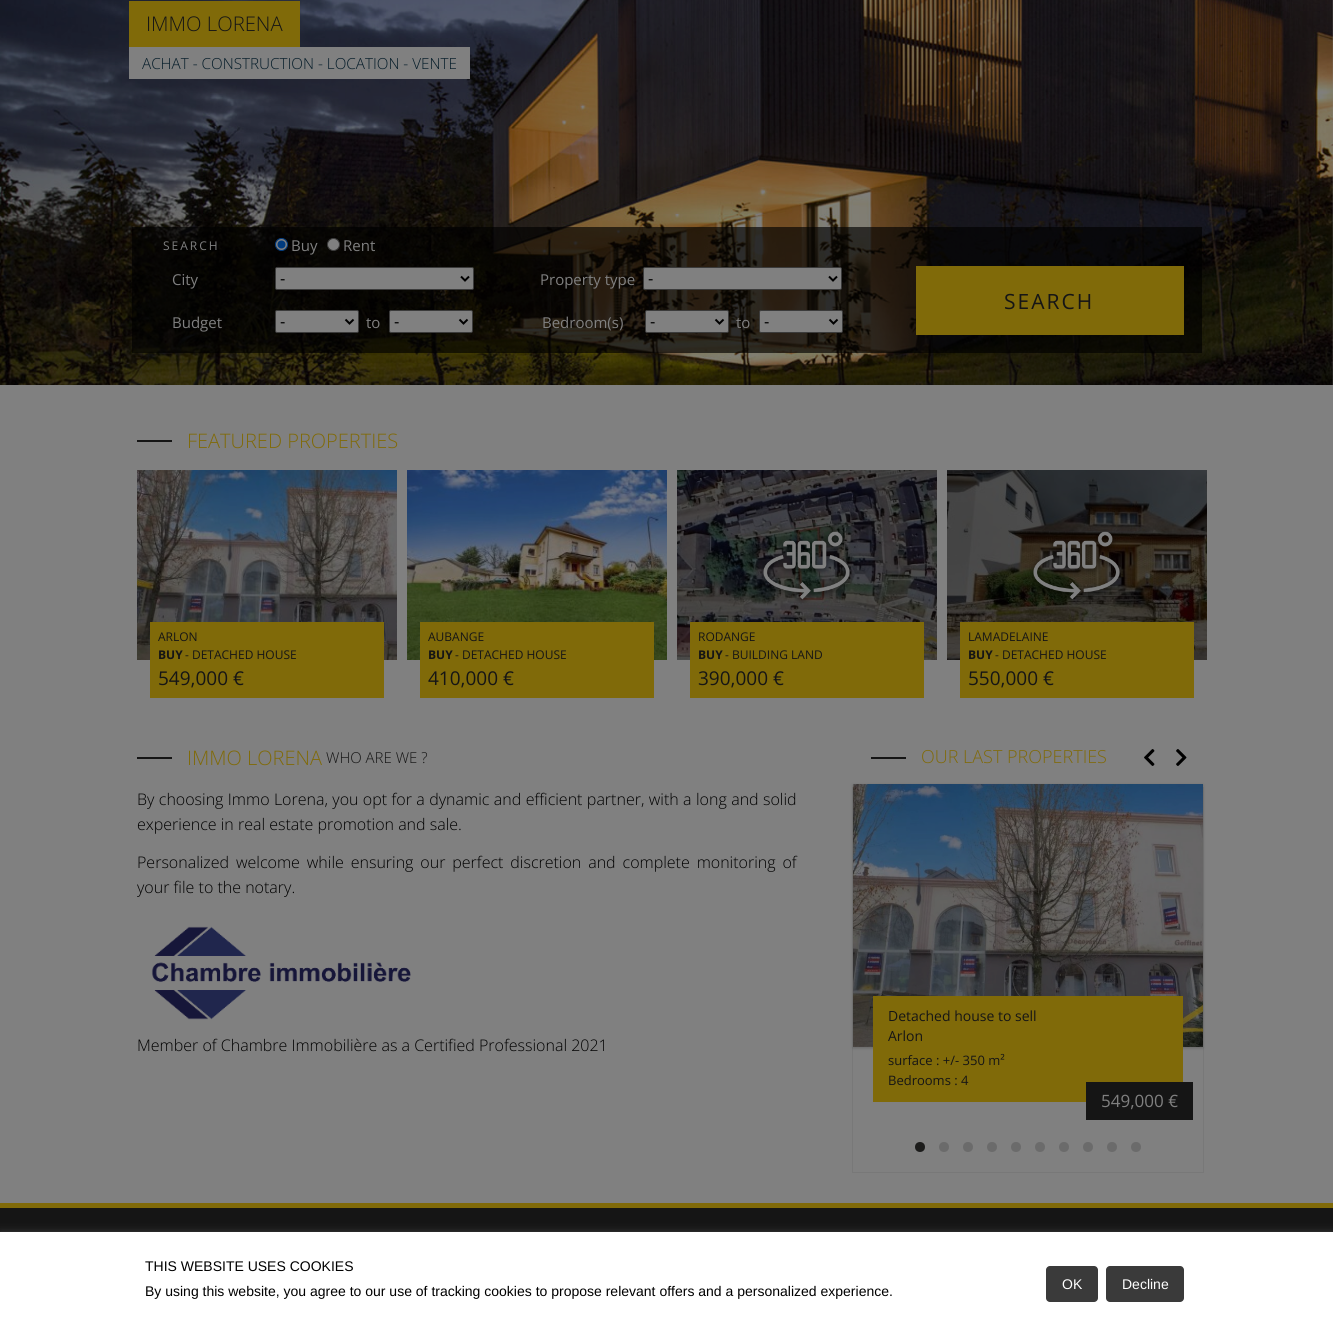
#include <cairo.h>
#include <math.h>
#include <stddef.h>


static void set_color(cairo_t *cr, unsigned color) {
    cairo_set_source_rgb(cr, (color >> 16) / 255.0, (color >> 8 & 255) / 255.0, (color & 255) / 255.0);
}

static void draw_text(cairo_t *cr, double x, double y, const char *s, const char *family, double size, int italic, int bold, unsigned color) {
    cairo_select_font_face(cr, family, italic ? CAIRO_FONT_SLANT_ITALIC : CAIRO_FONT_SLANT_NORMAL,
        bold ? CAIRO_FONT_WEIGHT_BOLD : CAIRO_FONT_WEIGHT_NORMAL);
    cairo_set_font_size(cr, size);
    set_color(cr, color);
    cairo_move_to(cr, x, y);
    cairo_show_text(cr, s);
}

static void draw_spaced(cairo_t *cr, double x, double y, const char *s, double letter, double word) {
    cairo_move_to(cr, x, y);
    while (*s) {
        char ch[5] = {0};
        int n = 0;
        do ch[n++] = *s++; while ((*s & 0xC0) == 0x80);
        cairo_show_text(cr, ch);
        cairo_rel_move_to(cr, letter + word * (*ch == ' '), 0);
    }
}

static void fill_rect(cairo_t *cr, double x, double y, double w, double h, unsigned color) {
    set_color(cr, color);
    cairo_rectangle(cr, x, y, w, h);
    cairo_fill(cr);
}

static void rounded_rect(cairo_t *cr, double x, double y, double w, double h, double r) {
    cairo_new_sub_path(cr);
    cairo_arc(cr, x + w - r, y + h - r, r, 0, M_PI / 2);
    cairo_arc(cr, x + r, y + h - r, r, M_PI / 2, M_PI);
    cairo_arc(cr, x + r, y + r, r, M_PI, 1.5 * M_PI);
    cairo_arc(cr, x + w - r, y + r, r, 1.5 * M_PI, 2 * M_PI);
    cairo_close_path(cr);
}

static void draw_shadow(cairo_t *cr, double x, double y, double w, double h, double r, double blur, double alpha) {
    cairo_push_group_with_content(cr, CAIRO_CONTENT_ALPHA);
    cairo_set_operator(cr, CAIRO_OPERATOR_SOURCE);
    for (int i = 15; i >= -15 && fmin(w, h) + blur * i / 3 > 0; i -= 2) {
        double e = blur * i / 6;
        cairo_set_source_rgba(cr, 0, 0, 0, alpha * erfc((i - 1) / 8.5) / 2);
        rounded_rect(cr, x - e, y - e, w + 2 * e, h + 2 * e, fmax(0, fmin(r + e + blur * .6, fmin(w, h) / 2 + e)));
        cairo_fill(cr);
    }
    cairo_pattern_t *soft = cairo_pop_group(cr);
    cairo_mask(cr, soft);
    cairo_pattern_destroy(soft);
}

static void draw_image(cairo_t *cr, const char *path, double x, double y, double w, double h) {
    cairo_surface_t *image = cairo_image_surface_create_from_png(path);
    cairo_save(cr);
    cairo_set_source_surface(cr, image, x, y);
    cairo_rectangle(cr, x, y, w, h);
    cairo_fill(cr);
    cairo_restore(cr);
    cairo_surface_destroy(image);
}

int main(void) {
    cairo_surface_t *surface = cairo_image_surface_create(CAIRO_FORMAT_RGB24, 1333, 1336);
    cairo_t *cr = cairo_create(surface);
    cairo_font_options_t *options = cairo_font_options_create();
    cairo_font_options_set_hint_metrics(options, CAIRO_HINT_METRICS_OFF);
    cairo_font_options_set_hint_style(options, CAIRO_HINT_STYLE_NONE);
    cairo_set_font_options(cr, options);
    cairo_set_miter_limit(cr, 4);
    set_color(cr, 0x808080);
    cairo_paint(cr);
    draw_image(cr, "assets/img1.png", 0, 0, 1333, 385);
    fill_rect(cr, 129, 1, 171, 46, 0x806A09);
    draw_text(cr, 146, 31, "IMMO LORENA", "Open Sans Light", 20.25, 0, 0, 0x151515);
    fill_rect(cr, 129, 47, 341, 32, 0x808080);
    draw_text(cr, 142, 69, "ACHAT - CONSTRUCTION - LOCATION - VENTE", "Open Sans Light", 15.25, 0, 0, 0x051C29);
    cairo_set_source_rgba(cr, 0, 0, 0, 0.65);
    cairo_rectangle(cr, 132, 227, 1070, 126);
    cairo_fill(cr);
    set_color(cr, 0x808080);
    cairo_arc(cr, 281.5, 244.5, 6, 0, 2 * M_PI);
    cairo_fill_preserve(cr);
    set_color(cr, 0x003B80);
    cairo_set_line_width(cr, 1);
    cairo_stroke(cr);
    cairo_arc(cr, 281.5, 244.5, 4, 0, 2 * M_PI);
    cairo_fill(cr);
    draw_text(cr, 291, 251, "Buy", "Open Sans", 15, 0, 0, 0x808080);
    cairo_new_path(cr);
    cairo_arc(cr, 333.5, 244.5, 6, 0, 2 * M_PI);
    cairo_fill_preserve(cr);
    set_color(cr, 0x3B3B3B);
    cairo_stroke(cr);
    draw_text(cr, 343, 251, "Rent", "Open Sans", 15, 0, 0, 0x808080);
    draw_text(cr, 172, 285, "City", "Open Sans", 15, 0, 0, 0x808080);
    rounded_rect(cr, 275.5, 267.5, 198, 22, 1.5);
    cairo_fill_preserve(cr);
    set_color(cr, 0x3B3B3B);
    cairo_stroke(cr);
    cairo_new_path(cr);
    cairo_move_to(cr, 461, 276.5);
    cairo_line_to(cr, 465, 280.5);
    cairo_line_to(cr, 469, 276.5);
    set_color(cr, 0x000000);
    cairo_set_line_width(cr, 2);
    cairo_stroke(cr);
    draw_text(cr, 280, 284, "-", "Liberation Sans", 16, 0, 0, 0x000000);
    draw_text(cr, 540, 285, "Property type", "Open Sans", 15, 0, 0, 0x808080);
    rounded_rect(cr, 643.5, 267.5, 198, 22, 1.5);
    cairo_fill_preserve(cr);
    set_color(cr, 0x3B3B3B);
    cairo_set_line_width(cr, 1);
    cairo_stroke(cr);
    cairo_new_path(cr);
    cairo_move_to(cr, 829, 276.5);
    cairo_line_to(cr, 833, 280.5);
    cairo_line_to(cr, 837, 276.5);
    set_color(cr, 0x000000);
    cairo_set_line_width(cr, 2);
    cairo_stroke(cr);
    draw_text(cr, 648, 284, "-", "Liberation Sans", 16, 0, 0, 0x000000);
    fill_rect(cr, 916, 266, 268, 69, 0x806A09);
    cairo_select_font_face(cr, "Open Sans", CAIRO_FONT_SLANT_NORMAL, CAIRO_FONT_WEIGHT_NORMAL);
    cairo_set_font_size(cr, 21);
    set_color(cr, 0x151515);
    draw_spaced(cr, 1004, 309, "SEARCH", 2, 0);
    draw_text(cr, 172, 328, "Budget", "Open Sans", 15, 0, 0, 0x808080);
    rounded_rect(cr, 275.5, 310.5, 83, 22, 1.5);
    cairo_fill_preserve(cr);
    set_color(cr, 0x3B3B3B);
    cairo_set_line_width(cr, 1);
    cairo_stroke(cr);
    cairo_new_path(cr);
    cairo_move_to(cr, 345.5, 319.5);
    cairo_line_to(cr, 349.5, 323.5);
    cairo_line_to(cr, 353.5, 319.5);
    set_color(cr, 0x000000);
    cairo_set_line_width(cr, 2);
    cairo_stroke(cr);
    draw_text(cr, 280, 327, "-", "Liberation Sans", 16, 0, 0, 0x000000);
    draw_text(cr, 366, 328, "to", "Open Sans", 15, 0, 0, 0x808080);
    rounded_rect(cr, 389.5, 310.5, 83, 22, 1.5);
    cairo_fill_preserve(cr);
    set_color(cr, 0x3B3B3B);
    cairo_set_line_width(cr, 1);
    cairo_stroke(cr);
    cairo_new_path(cr);
    cairo_move_to(cr, 459.5, 319.5);
    cairo_line_to(cr, 463.5, 323.5);
    cairo_line_to(cr, 467.5, 319.5);
    set_color(cr, 0x000000);
    cairo_set_line_width(cr, 2);
    cairo_stroke(cr);
    draw_text(cr, 394, 327, "-", "Liberation Sans", 16, 0, 0, 0x000000);
    draw_text(cr, 542, 328, "Bedroom(s)", "Open Sans", 15, 0, 0, 0x808080);
    rounded_rect(cr, 645.5, 310.5, 83, 22, 1.5);
    cairo_fill_preserve(cr);
    set_color(cr, 0x3B3B3B);
    cairo_set_line_width(cr, 1);
    cairo_stroke(cr);
    cairo_new_path(cr);
    cairo_move_to(cr, 715.5, 319.5);
    cairo_line_to(cr, 719.5, 323.5);
    cairo_line_to(cr, 723.5, 319.5);
    set_color(cr, 0x000000);
    cairo_set_line_width(cr, 2);
    cairo_stroke(cr);
    draw_text(cr, 650, 327, "-", "Liberation Sans", 16, 0, 0, 0x000000);
    draw_text(cr, 736, 328, "to", "Open Sans", 15, 0, 0, 0x808080);
    rounded_rect(cr, 759.5, 310.5, 83, 22, 1.5);
    cairo_fill_preserve(cr);
    set_color(cr, 0x3B3B3B);
    cairo_set_line_width(cr, 1);
    cairo_stroke(cr);
    cairo_new_path(cr);
    cairo_move_to(cr, 829.5, 319.5);
    cairo_line_to(cr, 833.5, 323.5);
    cairo_line_to(cr, 837.5, 319.5);
    set_color(cr, 0x000000);
    cairo_set_line_width(cr, 2);
    cairo_stroke(cr);
    draw_text(cr, 764, 327, "-", "Liberation Sans", 16, 0, 0, 0x000000);
    cairo_select_font_face(cr, "Open Sans", CAIRO_FONT_SLANT_NORMAL, CAIRO_FONT_WEIGHT_NORMAL);
    cairo_set_font_size(cr, 12);
    set_color(cr, 0x808080);
    draw_spaced(cr, 163, 250, "SEARCH", 2, 0);
    fill_rect(cr, 137, 440, 35, 2, 0x151515);
    draw_text(cr, 187, 448, "FEATURED PROPERTIES", "Open Sans Light", 20, 0, 0, 0x806A09);
    draw_image(cr, "assets/img2.png", 137, 470, 260, 190);
    fill_rect(cr, 150, 622, 234, 76, 0x806A09);
    draw_text(cr, 158, 641, "ARLON", "Open Sans", 12, 0, 0, 0x151515);
    draw_text(cr, 158, 659, "BUY", "Open Sans", 12, 0, 1, 0x151515);
    draw_text(cr, 185, 659, "- DETACHED HOUSE", "Open Sans", 12, 0, 0, 0x151515);
    draw_text(cr, 158, 685, "549,000 €", "Open Sans", 19, 0, 0, 0x151515);
    draw_image(cr, "assets/img3.png", 407, 470, 260, 190);
    fill_rect(cr, 420, 622, 234, 76, 0x806A09);
    draw_text(cr, 428, 641, "AUBANGE", "Open Sans", 12, 0, 0, 0x151515);
    draw_text(cr, 428, 659, "BUY", "Open Sans", 12, 0, 1, 0x151515);
    draw_text(cr, 455, 659, "- DETACHED HOUSE", "Open Sans", 12, 0, 0, 0x151515);
    draw_text(cr, 428, 685, "410,000 €", "Open Sans", 19, 0, 0, 0x151515);
    draw_image(cr, "assets/img4.png", 677, 470, 260, 190);
    draw_image(cr, "assets/img5.png", 759, 529, 95, 75);
    fill_rect(cr, 690, 622, 234, 76, 0x806A09);
    draw_text(cr, 698, 641, "RODANGE", "Open Sans", 12, 0, 0, 0x151515);
    draw_text(cr, 698, 659, "BUY", "Open Sans", 12, 0, 1, 0x151515);
    draw_text(cr, 725, 659, "- BUILDING LAND", "Open Sans", 12, 0, 0, 0x151515);
    draw_text(cr, 698, 685, "390,000 €", "Open Sans", 19, 0, 0, 0x151515);
    draw_image(cr, "assets/img6.png", 947, 470, 260, 190);
    draw_image(cr, "assets/img7.png", 1029, 529, 94, 75);
    fill_rect(cr, 960, 622, 234, 76, 0x806A09);
    draw_text(cr, 968, 641, "LAMADELAINE", "Open Sans", 12, 0, 0, 0x151515);
    draw_text(cr, 968, 659, "BUY", "Open Sans", 12, 0, 1, 0x151515);
    draw_text(cr, 995, 659, "- DETACHED HOUSE", "Open Sans", 12, 0, 0, 0x151515);
    draw_text(cr, 968, 685, "550,000 €", "Open Sans", 19, 0, 0, 0x151515);
    fill_rect(cr, 137, 757, 35, 2, 0x151515);
    draw_text(cr, 187, 765, "IMMO LORENA", "Open Sans Light", 20, 0, 0, 0x806A09);
    draw_text(cr, 326, 763, "WHO ARE WE ?", "Open Sans Light", 15, 0, 0, 0x151515);
    cairo_set_font_size(cr, 16);
    set_color(cr, 0x000000);
    draw_spaced(cr, 137, 805, "By choosing Immo Lorena, you opt for a dynamic and efficient partner, with a long and solid", 0, 0.25);
    draw_text(cr, 137, 830, "experience in real estate promotion and sale.", "Open Sans Light", 16, 0, 0, 0x000000);
    draw_spaced(cr, 137, 868, "Personalized welcome while ensuring our perfect discretion and complete monitoring of", 0, 2.75);
    cairo_save(cr);
    cairo_rectangle(cr, 137, 850, 660, 50);
    cairo_clip(cr);
    draw_text(cr, 137, 893, "your file to the notary.", "Open Sans Light", 16, 0, 0, 0x000000);
    cairo_restore(cr);
    draw_image(cr, "assets/img8.png", 151, 926, 260, 94);
    draw_text(cr, 137, 1051, "Member of Chambre Immobilière as a Certified Professional 2021", "Open Sans Light", 16, 0, 0, 0x000000);
    fill_rect(cr, 871, 757, 35, 2, 0x151515);
    draw_text(cr, 921, 763, "OUR LAST PROPERTIES", "Open Sans Light", 18, 0, 0, 0x806A09);
    cairo_rectangle(cr, 852.5, 787.5, 351, 385);
    set_color(cr, 0x787878);
    cairo_set_line_width(cr, 1);
    cairo_stroke(cr);
    draw_image(cr, "assets/img9.png", 1144, 749, 11, 17);
    draw_image(cr, "assets/img10.png", 1176, 749, 11, 17);
    set_color(cr, 0x000000);
    draw_shadow(cr, 853, 785, 350, 263, 0, 1.5, 0.2);
    draw_image(cr, "assets/img11.png", 853, 784, 350, 263);
    fill_rect(cr, 873, 996, 310, 106, 0x806A09);
    draw_text(cr, 888, 1021, "Detached house to sell", "Open Sans", 14, 0, 0, 0x151515);
    draw_text(cr, 888, 1041, "Arlon", "Open Sans", 14, 0, 0, 0x151515);
    draw_text(cr, 888, 1065, "surface : +/- 350 m²", "Open Sans", 13, 0, 0, 0x151515);
    draw_text(cr, 888, 1085, "Bedrooms : 4", "Open Sans", 13, 0, 0, 0x151515);
    fill_rect(cr, 1086, 1082, 107, 38, 0x151515);
    draw_text(cr, 1101, 1107, "549,000 €", "Open Sans", 17, 0, 0, 0x808080);
    set_color(cr, 0x1C1C1B);
    cairo_new_path(cr);
    cairo_arc(cr, 920, 1147, 5, 0, 2 * M_PI);
    cairo_fill(cr);
    set_color(cr, 0x6B6B6B);
    cairo_arc(cr, 944, 1147, 5, 0, 2 * M_PI);
    cairo_fill(cr);
    cairo_arc(cr, 968, 1147, 5, 0, 2 * M_PI);
    cairo_fill(cr);
    cairo_arc(cr, 992, 1147, 5, 0, 2 * M_PI);
    cairo_fill(cr);
    cairo_arc(cr, 1016, 1147, 5, 0, 2 * M_PI);
    cairo_fill(cr);
    cairo_arc(cr, 1040, 1147, 5, 0, 2 * M_PI);
    cairo_fill(cr);
    cairo_arc(cr, 1064, 1147, 5, 0, 2 * M_PI);
    cairo_fill(cr);
    cairo_arc(cr, 1088, 1147, 5, 0, 2 * M_PI);
    cairo_fill(cr);
    cairo_arc(cr, 1112, 1147, 5, 0, 2 * M_PI);
    cairo_fill(cr);
    cairo_arc(cr, 1136, 1147, 5, 0, 2 * M_PI);
    cairo_fill(cr);
    fill_rect(cr, 0, 1208, 1333, 24, 0x151515);
    fill_rect(cr, 0, 1203, 1333, 5, 0x806A09);
    set_color(cr, 0x606060);
    draw_shadow(cr, 0, 1235, 1333, 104, 0, 5, 1);
    fill_rect(cr, 0, 1232, 1333, 104, 0xFFFFFF);
    draw_text(cr, 145, 1271, "THIS WEBSITE USES COOKIES", "Liberation Sans", 14, 0, 0, 0x000000);
    draw_text(cr, 145, 1296, "By using this website, you agree to our use of tracking cookies to propose relevant offers and a personalized experience.", "Liberation Sans", 14, 0, 0, 0x000000);
    set_color(cr, 0x3A3A3A);
    rounded_rect(cr, 1046, 1266, 52, 36, 4);
    cairo_fill(cr);
    draw_text(cr, 1062, 1289, "OK", "Liberation Sans", 14, 0, 0, 0xFFFFFF);
    set_color(cr, 0x3A3A3A);
    rounded_rect(cr, 1106, 1266, 78, 36, 4);
    cairo_fill(cr);
    draw_text(cr, 1122, 1289, "Decline", "Liberation Sans", 14, 0, 0, 0xFFFFFF);
    cairo_surface_write_to_png(surface, "output.png");
    cairo_font_options_destroy(options);
    cairo_destroy(cr);
    cairo_surface_destroy(surface);
    return 0;
}
